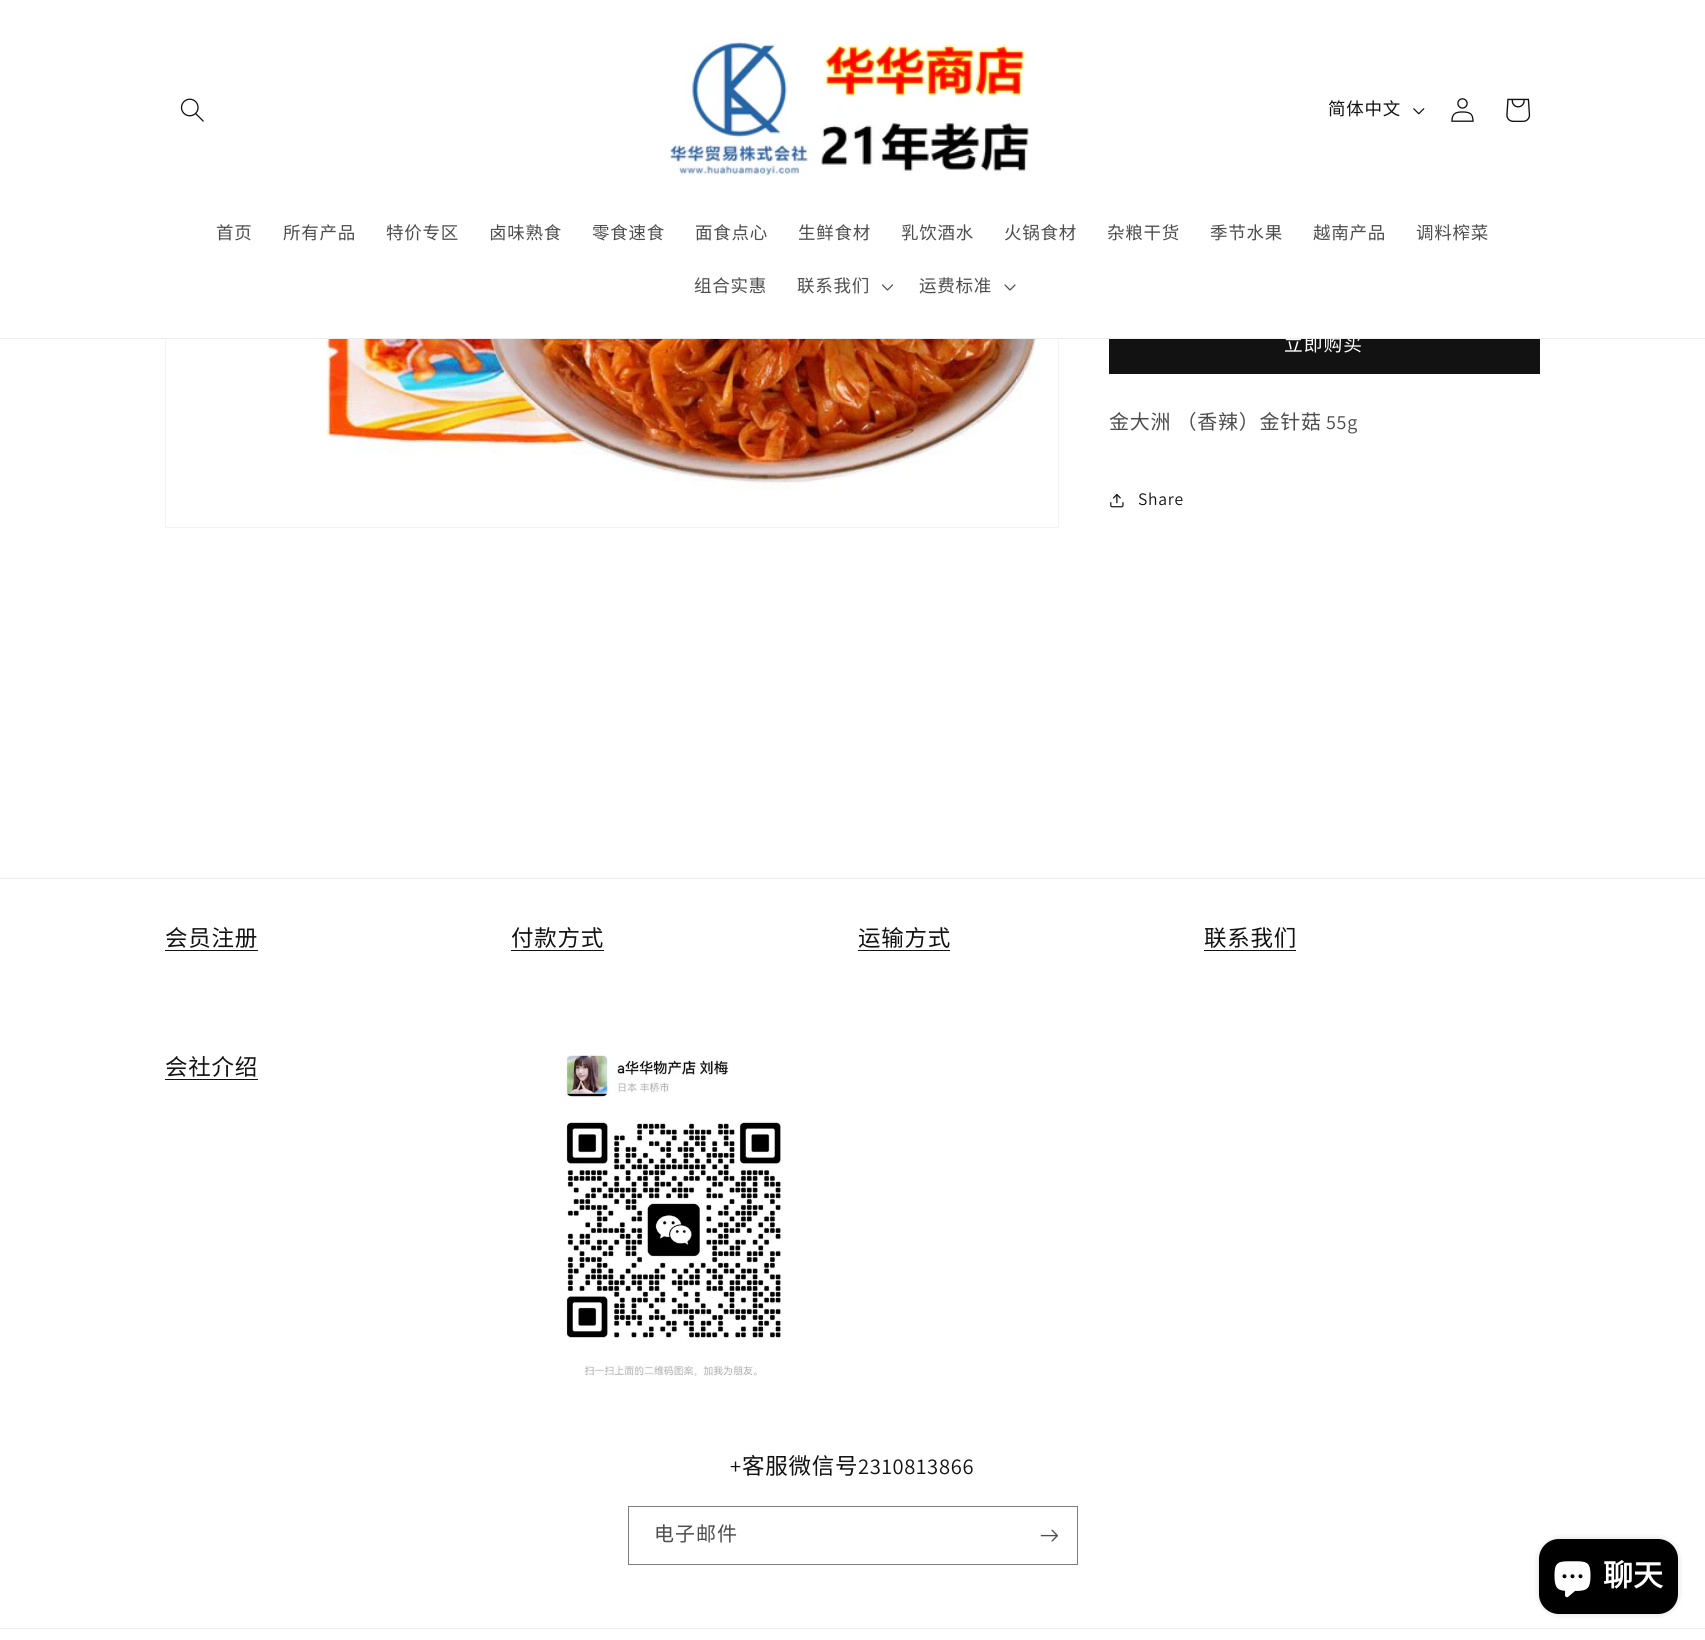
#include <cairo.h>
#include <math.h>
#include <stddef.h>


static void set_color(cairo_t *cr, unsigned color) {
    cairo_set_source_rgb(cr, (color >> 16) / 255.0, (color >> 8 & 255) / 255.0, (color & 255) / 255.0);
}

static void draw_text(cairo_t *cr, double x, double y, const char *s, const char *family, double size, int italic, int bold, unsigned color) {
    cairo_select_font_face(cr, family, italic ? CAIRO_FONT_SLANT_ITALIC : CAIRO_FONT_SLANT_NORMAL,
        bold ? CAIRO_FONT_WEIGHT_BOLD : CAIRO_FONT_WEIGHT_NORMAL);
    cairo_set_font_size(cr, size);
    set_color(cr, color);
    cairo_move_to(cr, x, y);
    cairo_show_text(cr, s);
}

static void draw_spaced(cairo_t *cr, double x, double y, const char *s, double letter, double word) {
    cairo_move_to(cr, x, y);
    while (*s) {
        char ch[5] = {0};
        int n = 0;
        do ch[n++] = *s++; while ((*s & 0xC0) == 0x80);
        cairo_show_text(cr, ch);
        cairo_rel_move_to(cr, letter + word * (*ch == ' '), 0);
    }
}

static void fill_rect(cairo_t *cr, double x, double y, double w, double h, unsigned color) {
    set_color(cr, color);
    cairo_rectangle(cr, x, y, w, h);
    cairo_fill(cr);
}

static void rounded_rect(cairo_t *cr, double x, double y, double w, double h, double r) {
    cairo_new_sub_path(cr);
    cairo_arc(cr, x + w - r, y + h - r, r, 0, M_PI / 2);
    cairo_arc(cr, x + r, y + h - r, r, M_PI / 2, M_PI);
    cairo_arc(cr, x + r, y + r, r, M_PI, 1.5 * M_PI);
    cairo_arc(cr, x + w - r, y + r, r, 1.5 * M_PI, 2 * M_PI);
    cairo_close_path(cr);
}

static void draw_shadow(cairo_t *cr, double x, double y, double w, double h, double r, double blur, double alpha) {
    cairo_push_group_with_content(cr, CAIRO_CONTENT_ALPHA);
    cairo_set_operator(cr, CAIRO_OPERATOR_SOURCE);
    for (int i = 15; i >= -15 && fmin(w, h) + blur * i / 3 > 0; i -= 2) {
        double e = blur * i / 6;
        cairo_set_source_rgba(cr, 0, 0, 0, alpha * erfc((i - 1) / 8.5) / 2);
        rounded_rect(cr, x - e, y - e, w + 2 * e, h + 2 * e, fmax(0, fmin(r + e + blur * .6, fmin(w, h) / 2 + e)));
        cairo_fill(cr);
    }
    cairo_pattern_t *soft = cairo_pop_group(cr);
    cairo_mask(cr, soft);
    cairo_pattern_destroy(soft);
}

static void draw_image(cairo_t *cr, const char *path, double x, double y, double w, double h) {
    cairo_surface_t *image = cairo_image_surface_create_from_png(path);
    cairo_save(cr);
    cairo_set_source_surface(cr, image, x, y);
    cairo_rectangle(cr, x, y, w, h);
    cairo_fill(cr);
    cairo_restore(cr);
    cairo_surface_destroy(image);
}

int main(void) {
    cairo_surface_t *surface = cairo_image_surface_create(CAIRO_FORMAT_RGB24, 1705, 1640);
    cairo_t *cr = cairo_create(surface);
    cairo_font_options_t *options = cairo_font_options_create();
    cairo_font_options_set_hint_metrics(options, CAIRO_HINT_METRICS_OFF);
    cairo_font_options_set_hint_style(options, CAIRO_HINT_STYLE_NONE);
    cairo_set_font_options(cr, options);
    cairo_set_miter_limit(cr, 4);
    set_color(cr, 0xFFFFFF);
    cairo_paint(cr);
    cairo_rectangle(cr, 165.5, -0.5, 893, 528);
    set_color(cr, 0xF3F3F3);
    cairo_set_line_width(cr, 1);
    cairo_stroke(cr);
    fill_rect(cr, 165, 0, 894, 338, 0xFFFFFF);
    fill_rect(cr, 1109, 339, 431, 35, 0x121212);
    cairo_select_font_face(cr, "Noto Sans CJK SC", CAIRO_FONT_SLANT_NORMAL, CAIRO_FONT_WEIGHT_NORMAL);
    cairo_set_font_size(cr, 18.75);
    set_color(cr, 0xFFFFFF);
    draw_spaced(cr, 1284, 351, "立即购买", 1, 0);
    fill_rect(cr, 0, 338, 1705, 1, 0xECECEC);
    draw_image(cr, "assets/img1.png", 180, 98, 24, 24);
    draw_image(cr, "assets/img2.png", 667, 37, 363, 139);
    cairo_set_font_size(cr, 17.5);
    set_color(cr, 0x121212);
    draw_spaced(cr, 1328, 115, "简体中文", 0.75, 0);
    draw_image(cr, "assets/img3.png", 1413, 108, 12, 7);
    draw_image(cr, "assets/img4.png", 1451, 98, 23, 24);
    draw_image(cr, "assets/img5.png", 1506, 98, 25, 24);
    set_color(cr, 0x4D4D4D);
    draw_spaced(cr, 216, 239, "首页", 0.75, 0);
    draw_spaced(cr, 283, 239, "所有产品", 0.75, 0);
    draw_spaced(cr, 386, 239, "特价专区", 0.75, 0);
    draw_spaced(cr, 489, 239, "卤味熟食", 0.75, 0);
    draw_spaced(cr, 592, 239, "零食速食", 0.75, 0);
    draw_spaced(cr, 695, 239, "面食点心", 0.75, 0);
    draw_spaced(cr, 798, 239, "生鲜食材", 0.75, 0);
    draw_spaced(cr, 901, 239, "乳饮酒水", 0.75, 0);
    draw_spaced(cr, 1004, 239, "火锅食材", 0.75, 0);
    draw_spaced(cr, 1107, 239, "杂粮干货", 0.75, 0);
    draw_spaced(cr, 1210, 239, "季节水果", 0.75, 0);
    draw_spaced(cr, 1313, 239, "越南产品", 0.75, 0);
    draw_spaced(cr, 1416, 239, "调料榨菜", 0.75, 0);
    draw_spaced(cr, 694, 292, "组合实惠", 0.75, 0);
    draw_spaced(cr, 797, 292, "联系我们", 0.75, 0);
    draw_image(cr, "assets/img6.png", 882, 284, 11, 7);
    draw_spaced(cr, 919, 292, "运费标准", 0.75, 0);
    draw_image(cr, "assets/img7.png", 1004, 284, 12, 7);
    draw_image(cr, "assets/img8.png", 309, 339, 731, 151);
    cairo_set_font_size(cr, 20);
    draw_spaced(cr, 1109, 429, "金大洲 （香辣）金针菇", 0.75, 0);
    cairo_select_font_face(cr, "Assistant", CAIRO_FONT_SLANT_NORMAL, CAIRO_FONT_WEIGHT_NORMAL);
    draw_spaced(cr, 1326, 429, "55g", 0.75, 0);
    draw_image(cr, "assets/img9.png", 1110, 493, 14, 15);
    cairo_set_font_size(cr, 17.5);
    set_color(cr, 0x121212);
    draw_spaced(cr, 1138, 505, "Share", 0.75, 0);
    fill_rect(cr, 0, 878, 1705, 1, 0xECECEC);
    cairo_select_font_face(cr, "Noto Sans CJK SC", CAIRO_FONT_SLANT_NORMAL, CAIRO_FONT_WEIGHT_NORMAL);
    cairo_set_font_size(cr, 22.5);
    set_color(cr, 0x121212);
    draw_spaced(cr, 165, 946, "会员注册", 0.75, 0);
    fill_rect(cr, 165, 950, 93, 1, 0x121212);
    draw_spaced(cr, 511, 946, "付款方式", 0.75, 0);
    fill_rect(cr, 511, 950, 93, 1, 0x121212);
    draw_spaced(cr, 858, 946, "运输方式", 0.75, 0);
    fill_rect(cr, 858, 950, 92, 1, 0x121212);
    draw_spaced(cr, 1204, 946, "联系我们", 0.75, 0);
    fill_rect(cr, 1204, 950, 92, 1, 0x121212);
    draw_spaced(cr, 165, 1075, "会社介绍", 0.75, 0);
    fill_rect(cr, 165, 1079, 93, 1, 0x121212);
    draw_image(cr, "assets/img10.png", 565, 1054, 218, 323);
    cairo_select_font_face(cr, "Assistant", CAIRO_FONT_SLANT_NORMAL, CAIRO_FONT_WEIGHT_NORMAL);
    draw_spaced(cr, 730, 1474, "+", 0.75, 0);
    cairo_select_font_face(cr, "Noto Sans CJK SC", CAIRO_FONT_SLANT_NORMAL, CAIRO_FONT_WEIGHT_NORMAL);
    draw_spaced(cr, 742, 1474, "客服微信号", 0.75, 0);
    cairo_select_font_face(cr, "Assistant", CAIRO_FONT_SLANT_NORMAL, CAIRO_FONT_WEIGHT_NORMAL);
    draw_spaced(cr, 858, 1474, "2310813866", 0.75, 0);
    cairo_rectangle(cr, 628.5, 1506.5, 449, 58);
    set_color(cr, 0x7D7D7D);
    cairo_stroke(cr);
    cairo_select_font_face(cr, "Noto Sans CJK SC", CAIRO_FONT_SLANT_NORMAL, CAIRO_FONT_WEIGHT_NORMAL);
    cairo_set_font_size(cr, 20);
    set_color(cr, 0x4D4D4D);
    draw_spaced(cr, 654, 1541, "电子邮件", 1, 0);
    draw_image(cr, "assets/img11.png", 1040, 1529, 18, 13);
    fill_rect(cr, 0, 1628, 1705, 1, 0xECECEC);
    set_color(cr, 0x000000);
    draw_shadow(cr, 1539, 1539, 139, 75, 20, 3, 0.15);
    set_color(cr, 0x000000);
    rounded_rect(cr, 1539, 1539, 139, 75, 20);
    cairo_fill(cr);
    draw_image(cr, "assets/img12.png", 1554, 1561, 37, 37);
    draw_text(cr, 1603, 1586, "聊天", "Noto Sans CJK SC", 30, 0, 1, 0xFFFFFF);
    cairo_surface_write_to_png(surface, "output.png");
    cairo_font_options_destroy(options);
    cairo_destroy(cr);
    cairo_surface_destroy(surface);
    return 0;
}
